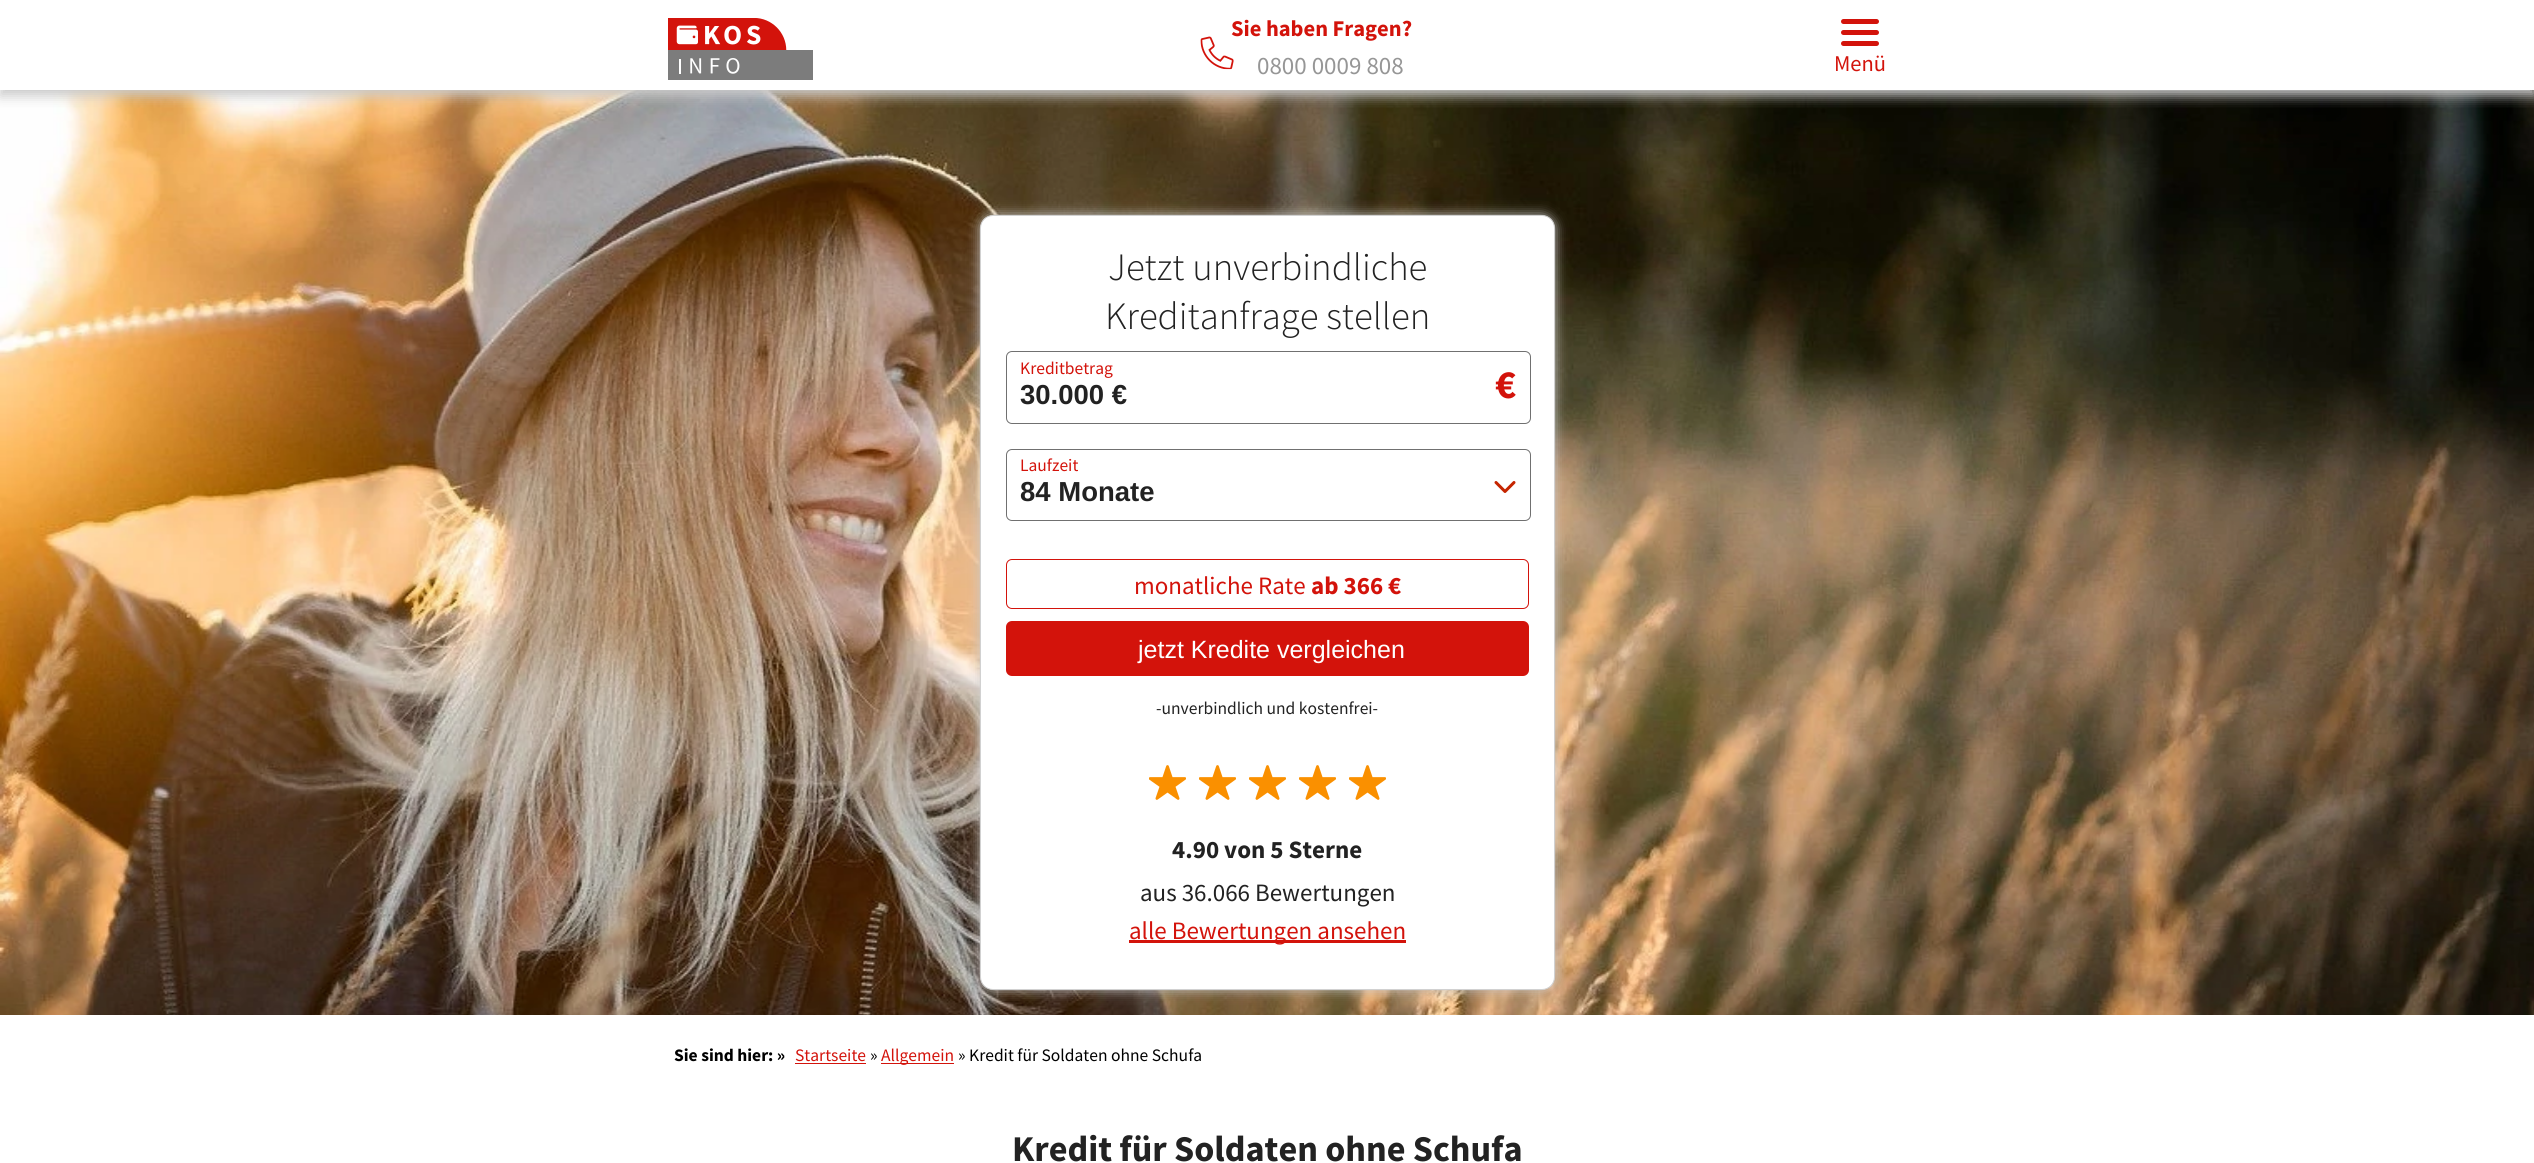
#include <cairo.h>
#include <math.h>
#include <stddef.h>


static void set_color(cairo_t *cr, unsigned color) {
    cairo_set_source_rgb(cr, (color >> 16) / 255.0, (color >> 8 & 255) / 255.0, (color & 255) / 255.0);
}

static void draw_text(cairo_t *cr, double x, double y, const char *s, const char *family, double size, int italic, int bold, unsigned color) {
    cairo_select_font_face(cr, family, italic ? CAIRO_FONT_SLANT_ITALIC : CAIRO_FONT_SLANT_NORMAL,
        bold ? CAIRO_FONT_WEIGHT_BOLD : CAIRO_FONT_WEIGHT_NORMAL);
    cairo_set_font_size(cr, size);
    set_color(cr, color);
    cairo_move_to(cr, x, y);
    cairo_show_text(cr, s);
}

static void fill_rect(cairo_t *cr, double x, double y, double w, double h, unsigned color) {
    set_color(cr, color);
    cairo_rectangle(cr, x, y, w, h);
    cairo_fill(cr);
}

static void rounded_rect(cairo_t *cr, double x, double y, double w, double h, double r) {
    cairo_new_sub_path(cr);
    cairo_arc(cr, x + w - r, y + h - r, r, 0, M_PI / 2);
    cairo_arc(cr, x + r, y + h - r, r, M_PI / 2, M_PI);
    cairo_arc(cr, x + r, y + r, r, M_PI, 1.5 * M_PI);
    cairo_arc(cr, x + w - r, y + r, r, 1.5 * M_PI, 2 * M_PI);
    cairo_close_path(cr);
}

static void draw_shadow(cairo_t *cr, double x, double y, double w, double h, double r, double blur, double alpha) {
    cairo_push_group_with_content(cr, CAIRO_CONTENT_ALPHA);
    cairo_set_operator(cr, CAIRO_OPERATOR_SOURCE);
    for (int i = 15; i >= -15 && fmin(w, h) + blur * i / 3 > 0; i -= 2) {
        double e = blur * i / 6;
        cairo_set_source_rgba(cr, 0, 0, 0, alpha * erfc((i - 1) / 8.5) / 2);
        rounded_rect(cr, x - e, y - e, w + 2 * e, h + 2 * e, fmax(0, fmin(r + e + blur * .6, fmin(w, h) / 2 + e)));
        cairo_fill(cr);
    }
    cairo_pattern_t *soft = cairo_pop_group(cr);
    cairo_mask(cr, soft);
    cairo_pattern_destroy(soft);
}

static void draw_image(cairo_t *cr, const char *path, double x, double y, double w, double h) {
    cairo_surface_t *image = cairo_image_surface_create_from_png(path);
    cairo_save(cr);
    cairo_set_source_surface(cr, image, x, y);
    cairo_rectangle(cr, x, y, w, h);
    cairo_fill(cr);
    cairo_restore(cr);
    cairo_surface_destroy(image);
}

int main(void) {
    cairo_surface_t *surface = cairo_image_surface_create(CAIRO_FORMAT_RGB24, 2534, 1163);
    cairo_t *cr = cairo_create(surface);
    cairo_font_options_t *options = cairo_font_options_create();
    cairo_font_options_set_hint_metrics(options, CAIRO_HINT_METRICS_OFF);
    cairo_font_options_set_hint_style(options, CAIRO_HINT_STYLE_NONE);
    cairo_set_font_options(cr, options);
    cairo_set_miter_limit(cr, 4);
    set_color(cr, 0xFFFFFF);
    cairo_paint(cr);
    draw_image(cr, "assets/img3.png", 0, 90, 2534, 925);
    cairo_save(cr);
    cairo_rectangle(cr, 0, 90, 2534, 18);
    cairo_clip(cr);
    set_color(cr, 0xC9C9C9);
    draw_shadow(cr, 0, 6, 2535, 90, 0, 6, 1);
    cairo_restore(cr);
    draw_image(cr, "assets/img1.png", 668, 18, 145, 62);
    draw_text(cr, 1231, 36, "Sie haben Fragen?", "Source Sans Pro", 22.5, 0, 1, 0xD3130B);
    draw_image(cr, "assets/img2.png", 1200, 36, 34, 34);
    draw_text(cr, 1257, 74, "0800 0009 808", "Source Sans Pro", 25, 0, 0, 0x969696);
    set_color(cr, 0xD3130B);
    rounded_rect(cr, 1841, 19, 38, 5, 2.5);
    cairo_fill(cr);
    rounded_rect(cr, 1841, 30, 38, 5, 2.5);
    cairo_fill(cr);
    rounded_rect(cr, 1841, 41, 38, 5, 2.5);
    cairo_fill(cr);
    draw_text(cr, 1834, 71, "Menü", "Source Sans Pro", 22.5, 0, 0, 0xD3130B);
    set_color(cr, 0xC9C9C9);
    draw_shadow(cr, 980, 215, 575, 775, 13, 6, 1);
    set_color(cr, 0xFFFFFF);
    rounded_rect(cr, 980.5, 215.5, 574, 774, 12.5);
    cairo_fill_preserve(cr);
    set_color(cr, 0xD1D1D1);
    cairo_set_line_width(cr, 1);
    cairo_stroke(cr);
    draw_text(cr, 1108, 280, "Jetzt unverbindliche", "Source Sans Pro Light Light", 38.75, 0, 0, 0x222222);
    draw_text(cr, 1105, 329, "Kreditanfrage stellen", "Source Sans Pro Light Light", 38.75, 0, 0, 0x222222);
    rounded_rect(cr, 1006.5, 351.5, 524, 72, 5.5);
    set_color(cr, 0x707070);
    cairo_stroke(cr);
    draw_text(cr, 1020, 374, "Kreditbetrag", "Source Sans Pro", 17.5, 0, 0, 0xD3130B);
    draw_text(cr, 1020, 404, "30.000 €", "Liberation Sans", 27.5, 0, 1, 0x222222);
    draw_text(cr, 1495, 398, "€", "Source Sans Pro", 40, 0, 1, 0xD3130B);
    rounded_rect(cr, 1006.5, 449.5, 524, 71, 5.5);
    set_color(cr, 0x707070);
    cairo_stroke(cr);
    draw_text(cr, 1020, 471, "Laufzeit", "Source Sans Pro", 17.5, 0, 0, 0xD3130B);
    draw_text(cr, 1020, 501, "84 Monate", "Liberation Sans", 27.5, 0, 1, 0x222222);
    cairo_new_path(cr);
    cairo_move_to(cr, 1496, 482.5);
    cairo_line_to(cr, 1505, 491.5);
    cairo_line_to(cr, 1514, 482.5);
    set_color(cr, 0xC52500);
    cairo_set_line_width(cr, 3);
    cairo_set_line_cap(cr, CAIRO_LINE_CAP_ROUND);
    cairo_set_line_join(cr, CAIRO_LINE_JOIN_ROUND);
    cairo_stroke(cr);
    rounded_rect(cr, 1006.5, 559.5, 522, 49, 5.5);
    set_color(cr, 0xD3130B);
    cairo_set_line_width(cr, 1);
    cairo_set_line_cap(cr, CAIRO_LINE_CAP_BUTT);
    cairo_set_line_join(cr, CAIRO_LINE_JOIN_MITER);
    cairo_stroke(cr);
    draw_text(cr, 1134, 594, "monatliche Rate", "Source Sans Pro", 25, 0, 0, 0xD3130B);
    draw_text(cr, 1311, 594, "ab 366 €", "Source Sans Pro", 25, 0, 1, 0xD3130B);
    rounded_rect(cr, 1006, 621, 523, 55, 6);
    cairo_fill(cr);
    draw_text(cr, 1138, 658, "jetzt Kredite vergleichen", "Liberation Sans", 25, 0, 0, 0xFFFFFF);
    draw_text(cr, 1156, 714, "-unverbindlich und kostenfrei-", "Source Sans Pro", 17.5, 0, 0, 0x222222);
    draw_image(cr, "assets/img4.png", 1149, 765, 37, 35);
    draw_image(cr, "assets/img4.png", 1199, 765, 37, 35);
    draw_image(cr, "assets/img4.png", 1249, 765, 37, 35);
    draw_image(cr, "assets/img4.png", 1299, 765, 37, 35);
    draw_image(cr, "assets/img4.png", 1349, 765, 37, 35);
    draw_text(cr, 1172, 858, "4.90 von 5 Sterne", "Source Sans Pro", 25, 0, 1, 0x222222);
    draw_text(cr, 1140, 901, "aus 36.066 Bewertungen", "Source Sans Pro", 25, 0, 0, 0x222222);
    fill_rect(cr, 1129, 940, 277, 3, 0xD3130B);
    draw_text(cr, 1129, 939, "alle Bewertungen ansehen", "Source Sans Pro", 25, 0, 0, 0xD3130B);
    draw_text(cr, 674, 1061, "Sie sind hier: »", "Source Sans Pro", 17.5, 0, 1, 0x000000);
    draw_text(cr, 795, 1061, "Startseite", "Source Sans Pro", 17.5, 0, 0, 0xD3130B);
    fill_rect(cr, 795, 1063, 71, 1, 0xD3130B);
    draw_text(cr, 870, 1061, "»", "Source Sans Pro", 17.5, 0, 0, 0x000000);
    fill_rect(cr, 881, 1063, 73, 1, 0xD3130B);
    draw_text(cr, 881, 1061, "Allgemein", "Source Sans Pro", 17.5, 0, 0, 0xD3130B);
    draw_text(cr, 958, 1061, "» Kredit für Soldaten ohne Schufa", "Source Sans Pro", 17.5, 0, 0, 0x000000);
    draw_text(cr, 1012, 1161, "Kredit für Soldaten ohne Schufa", "Source Sans Pro", 36.25, 0, 1, 0x222222);
    cairo_surface_write_to_png(surface, "output.png");
    cairo_font_options_destroy(options);
    cairo_destroy(cr);
    cairo_surface_destroy(surface);
    return 0;
}
